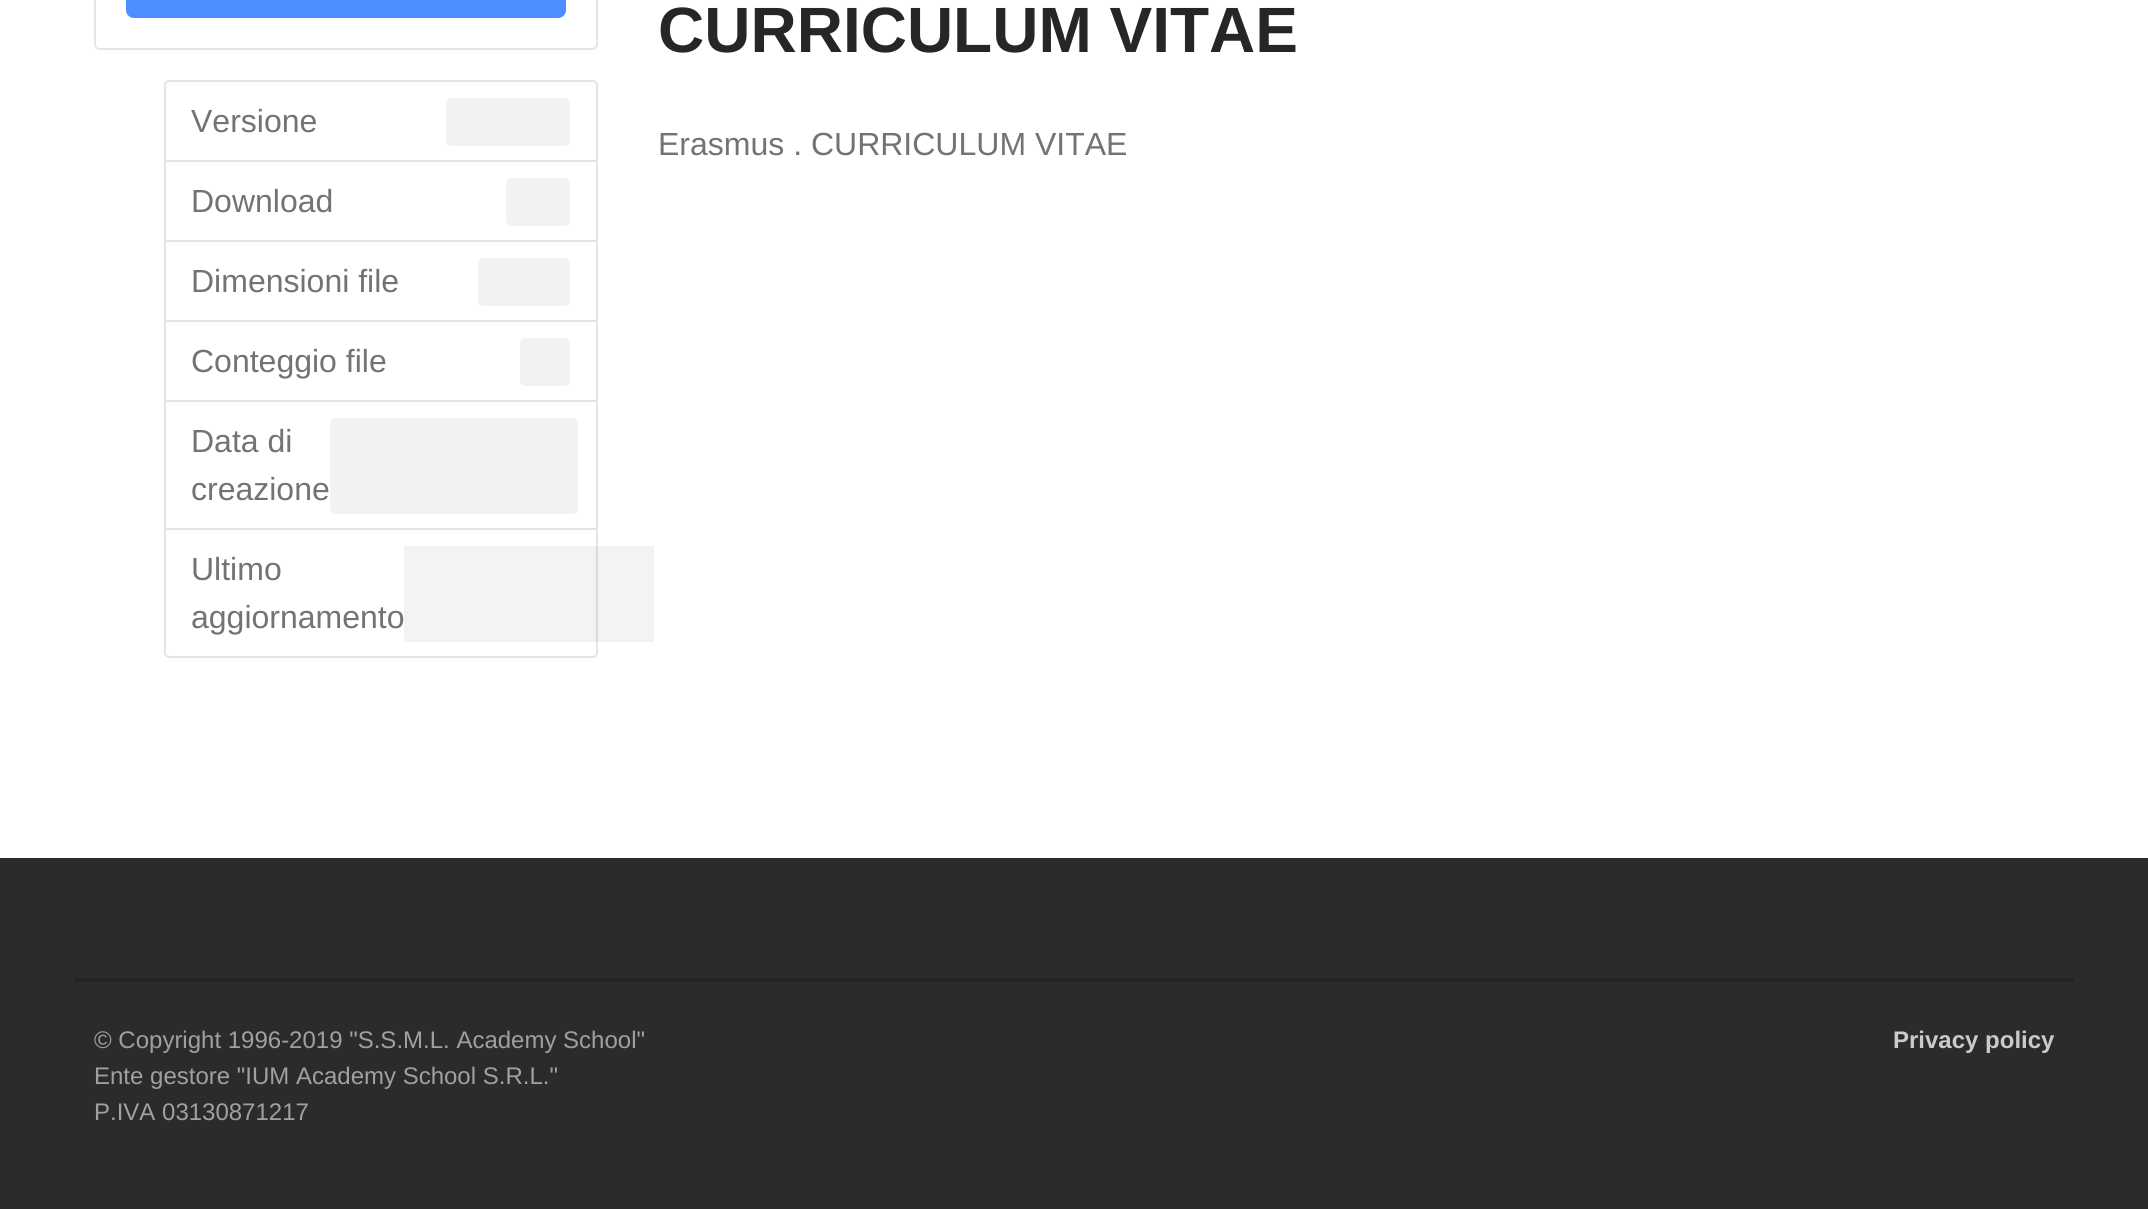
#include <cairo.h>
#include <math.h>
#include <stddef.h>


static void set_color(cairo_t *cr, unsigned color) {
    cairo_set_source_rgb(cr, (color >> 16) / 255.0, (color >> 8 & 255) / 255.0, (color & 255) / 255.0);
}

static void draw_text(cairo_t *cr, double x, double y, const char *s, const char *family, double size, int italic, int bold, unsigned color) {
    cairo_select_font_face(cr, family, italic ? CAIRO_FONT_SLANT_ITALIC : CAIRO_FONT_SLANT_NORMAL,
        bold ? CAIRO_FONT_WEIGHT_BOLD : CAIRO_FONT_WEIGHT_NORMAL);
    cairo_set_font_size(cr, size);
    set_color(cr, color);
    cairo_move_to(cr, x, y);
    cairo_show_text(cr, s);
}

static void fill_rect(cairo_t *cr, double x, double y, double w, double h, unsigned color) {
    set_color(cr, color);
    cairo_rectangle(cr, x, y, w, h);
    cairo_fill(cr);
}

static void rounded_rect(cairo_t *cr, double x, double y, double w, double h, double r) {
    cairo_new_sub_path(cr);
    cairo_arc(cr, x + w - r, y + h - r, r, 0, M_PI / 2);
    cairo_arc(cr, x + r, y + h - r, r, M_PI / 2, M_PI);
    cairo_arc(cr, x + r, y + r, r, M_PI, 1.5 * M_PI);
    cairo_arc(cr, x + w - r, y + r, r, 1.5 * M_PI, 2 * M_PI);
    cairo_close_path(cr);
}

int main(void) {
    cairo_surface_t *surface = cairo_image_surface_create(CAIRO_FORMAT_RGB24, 2148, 1209);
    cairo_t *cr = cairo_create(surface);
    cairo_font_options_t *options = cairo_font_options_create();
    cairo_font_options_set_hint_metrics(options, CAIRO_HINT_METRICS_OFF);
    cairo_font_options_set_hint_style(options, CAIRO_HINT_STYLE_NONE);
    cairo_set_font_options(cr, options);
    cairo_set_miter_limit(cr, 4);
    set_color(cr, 0xFFFFFF);
    cairo_paint(cr);
    draw_text(cr, 658, 52, "CURRICULUM VITAE", "Liberation Sans", 64, 0, 1, 0x262626);
    draw_text(cr, 658, 155, "Erasmus . CURRICULUM VITAE", "Liberation Sans", 32, 0, 0, 0x737373);
    rounded_rect(cr, 95, -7, 502, 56, 5);
    set_color(cr, 0xE5E5E5);
    cairo_stroke(cr);
    set_color(cr, 0x4A8EFF);
    rounded_rect(cr, 126, -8, 440, 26, 8);
    cairo_fill(cr);
    cairo_new_path(cr);
    cairo_move_to(cr, 169, 81);
    cairo_line_to(cr, 593, 81);
    cairo_curve_to(cr, 595, 81, 597, 83, 597, 85);
    cairo_line_to(cr, 597, 161);
    cairo_line_to(cr, 165, 161);
    cairo_line_to(cr, 165, 85);
    cairo_curve_to(cr, 165, 83, 167, 81, 169, 81);
    cairo_close_path(cr);
    set_color(cr, 0xE5E5E5);
    cairo_stroke(cr);
    draw_text(cr, 191, 132, "Versione", "Liberation Sans", 32, 0, 0, 0x737373);
    set_color(cr, 0xF2F2F2);
    rounded_rect(cr, 446, 98, 124, 48, 6);
    cairo_fill(cr);
    cairo_rectangle(cr, 165, 161, 432, 80);
    set_color(cr, 0xE5E5E5);
    cairo_stroke(cr);
    draw_text(cr, 191, 212, "Download", "Liberation Sans", 32, 0, 0, 0x737373);
    set_color(cr, 0xF2F2F2);
    rounded_rect(cr, 506, 178, 64, 48, 6);
    cairo_fill(cr);
    cairo_rectangle(cr, 165, 241, 432, 80);
    set_color(cr, 0xE5E5E5);
    cairo_stroke(cr);
    draw_text(cr, 191, 292, "Dimensioni file", "Liberation Sans", 32, 0, 0, 0x737373);
    set_color(cr, 0xF2F2F2);
    rounded_rect(cr, 478, 258, 92, 48, 6);
    cairo_fill(cr);
    cairo_rectangle(cr, 165, 321, 432, 80);
    set_color(cr, 0xE5E5E5);
    cairo_stroke(cr);
    draw_text(cr, 191, 372, "Conteggio file", "Liberation Sans", 32, 0, 0, 0x737373);
    set_color(cr, 0xF2F2F2);
    rounded_rect(cr, 520, 338, 50, 48, 6);
    cairo_fill(cr);
    cairo_rectangle(cr, 165, 401, 432, 128);
    set_color(cr, 0xE5E5E5);
    cairo_stroke(cr);
    draw_text(cr, 191, 452, "Data di", "Liberation Sans", 32, 0, 0, 0x737373);
    set_color(cr, 0xF2F2F2);
    rounded_rect(cr, 330, 418, 248, 96, 6);
    cairo_fill(cr);
    draw_text(cr, 191, 500, "creazione", "Liberation Sans", 32, 0, 0, 0x737373);
    set_color(cr, 0xFFFFFF);
    cairo_new_path(cr);
    cairo_move_to(cr, 165, 529);
    cairo_line_to(cr, 597, 529);
    cairo_line_to(cr, 597, 653);
    cairo_curve_to(cr, 597, 655, 595, 657, 593, 657);
    cairo_line_to(cr, 169, 657);
    cairo_curve_to(cr, 167, 657, 165, 655, 165, 653);
    cairo_close_path(cr);
    cairo_fill_preserve(cr);
    set_color(cr, 0xE5E5E5);
    cairo_stroke(cr);
    draw_text(cr, 191, 580, "Ultimo", "Liberation Sans", 32, 0, 0, 0x737373);
    cairo_set_source_rgba(cr, 0, 0, 0, 0.05);
    cairo_rectangle(cr, 404, 546, 250, 96);
    cairo_fill(cr);
    draw_text(cr, 191, 628, "aggiornamento", "Liberation Sans", 32, 0, 0, 0x737373);
    fill_rect(cr, 0, 858, 2148, 351, 0x2B2B2B);
    fill_rect(cr, 74, 978, 2000, 4, 0x252525);
    draw_text(cr, 94, 1048, "© Copyright 1996-2019 \"S.S.M.L. Academy School\"", "Liberation Sans", 24, 0, 0, 0xA0A0A0);
    draw_text(cr, 94, 1084, "Ente gestore \"IUM Academy School S.R.L.\"", "Liberation Sans", 24, 0, 0, 0xA0A0A0);
    draw_text(cr, 94, 1120, "P.IVA 03130871217", "Liberation Sans", 24, 0, 0, 0xA0A0A0);
    draw_text(cr, 1893, 1048, "Privacy policy", "Liberation Sans", 24, 0, 1, 0xCACACA);
    cairo_surface_write_to_png(surface, "output.png");
    cairo_font_options_destroy(options);
    cairo_destroy(cr);
    cairo_surface_destroy(surface);
    return 0;
}
